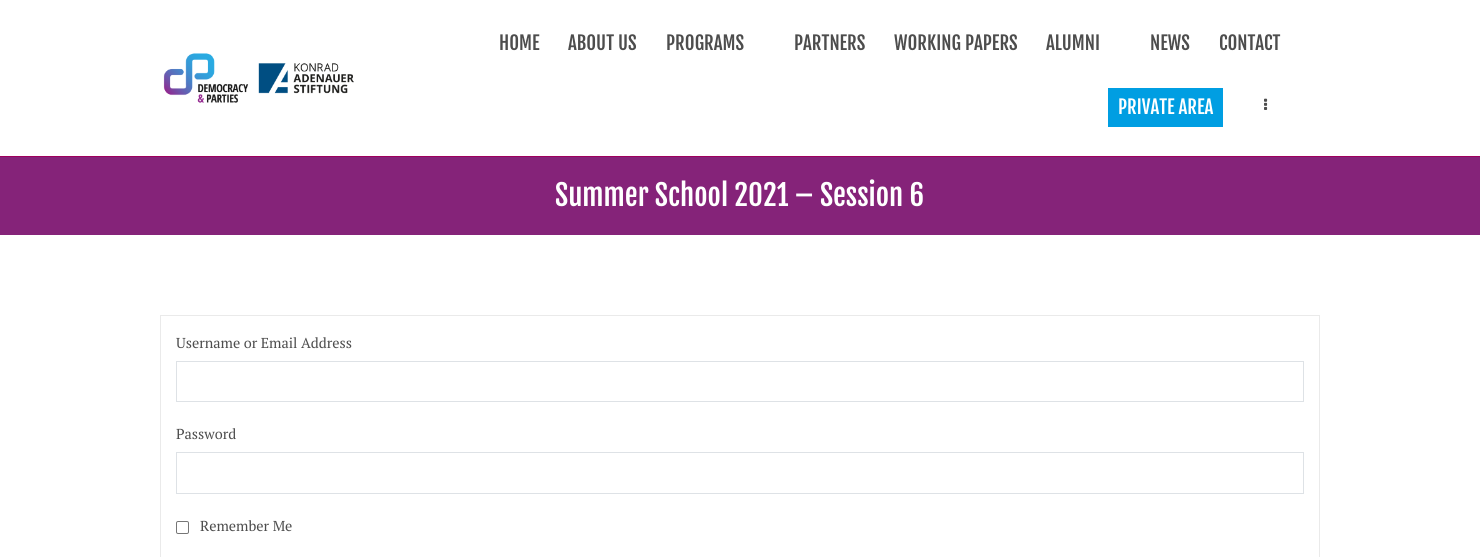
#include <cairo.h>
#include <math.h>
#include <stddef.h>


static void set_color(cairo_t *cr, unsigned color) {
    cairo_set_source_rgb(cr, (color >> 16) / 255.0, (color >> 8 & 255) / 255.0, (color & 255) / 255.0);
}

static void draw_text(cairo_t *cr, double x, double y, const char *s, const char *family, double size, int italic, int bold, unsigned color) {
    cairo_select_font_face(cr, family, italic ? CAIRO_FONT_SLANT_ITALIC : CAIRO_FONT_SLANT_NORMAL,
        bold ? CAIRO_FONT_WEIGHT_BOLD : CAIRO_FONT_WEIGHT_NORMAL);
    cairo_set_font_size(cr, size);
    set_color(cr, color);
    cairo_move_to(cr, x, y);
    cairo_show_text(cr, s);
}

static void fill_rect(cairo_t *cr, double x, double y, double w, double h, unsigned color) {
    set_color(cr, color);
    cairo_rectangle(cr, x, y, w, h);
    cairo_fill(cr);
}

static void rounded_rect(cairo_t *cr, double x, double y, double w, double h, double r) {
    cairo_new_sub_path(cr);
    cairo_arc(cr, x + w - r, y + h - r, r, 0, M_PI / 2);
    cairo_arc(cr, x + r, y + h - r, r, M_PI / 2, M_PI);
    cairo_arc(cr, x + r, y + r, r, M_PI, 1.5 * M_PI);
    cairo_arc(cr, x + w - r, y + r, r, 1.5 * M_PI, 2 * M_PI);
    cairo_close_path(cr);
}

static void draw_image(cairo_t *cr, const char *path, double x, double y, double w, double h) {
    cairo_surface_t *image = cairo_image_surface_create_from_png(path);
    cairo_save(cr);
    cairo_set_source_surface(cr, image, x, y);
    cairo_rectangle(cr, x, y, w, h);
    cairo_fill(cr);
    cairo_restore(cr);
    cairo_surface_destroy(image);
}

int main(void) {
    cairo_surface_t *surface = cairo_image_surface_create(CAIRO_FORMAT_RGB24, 1480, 557);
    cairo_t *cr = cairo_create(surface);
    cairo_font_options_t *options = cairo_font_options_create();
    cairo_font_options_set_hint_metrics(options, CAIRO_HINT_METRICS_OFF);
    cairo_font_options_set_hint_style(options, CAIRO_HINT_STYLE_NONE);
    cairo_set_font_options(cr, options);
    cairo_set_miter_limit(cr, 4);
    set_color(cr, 0xFFFFFF);
    cairo_paint(cr);
    fill_rect(cr, 0, 156, 1480, 1, 0x9E005D);
    draw_image(cr, "assets/img1.png", 163, 53, 191, 50);
    draw_text(cr, 499, 50, "HOME", "Fjalla One", 18.75, 0, 0, 0x4D4D4D);
    draw_text(cr, 568, 50, "ABOUT US", "Fjalla One", 18.75, 0, 0, 0x4D4D4D);
    draw_text(cr, 666, 50, "PROGRAMS", "Fjalla One", 18.75, 0, 0, 0x4D4D4D);
    draw_text(cr, 794, 50, "PARTNERS", "Fjalla One", 18.75, 0, 0, 0x4D4D4D);
    draw_text(cr, 894, 50, "WORKING PAPERS", "Fjalla One", 18.75, 0, 0, 0x4D4D4D);
    draw_text(cr, 1046, 50, "ALUMNI", "Fjalla One", 18.75, 0, 0, 0x4D4D4D);
    draw_text(cr, 1150, 50, "NEWS", "Fjalla One", 18.75, 0, 0, 0x4D4D4D);
    draw_text(cr, 1219, 50, "CONTACT", "Fjalla One", 18.75, 0, 0, 0x4D4D4D);
    fill_rect(cr, 1108, 88, 115, 39, 0x009EE2);
    draw_text(cr, 1118, 114, "PRIVATE AREA", "Fjalla One", 18.75, 0, 0, 0xFFFFFF);
    draw_image(cr, "assets/img2.png", 1264, 98, 4, 12);
    fill_rect(cr, 0, 157, 1480, 78, 0x852379);
    draw_text(cr, 555, 206, "Summer School 2021 – Session 6", "Fjalla One", 28.75, 0, 0, 0xFFFFFF);
    cairo_rectangle(cr, 160.5, 315.5, 1159, 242);
    set_color(cr, 0xEAEAEA);
    cairo_set_line_width(cr, 1);
    cairo_stroke(cr);
    draw_text(cr, 176, 348, "Username or Email Address", "PT Serif", 14.4, 0, 0, 0x4D4D4D);
    cairo_rectangle(cr, 176.5, 361.5, 1127, 40);
    set_color(cr, 0xDEE2E6);
    cairo_stroke(cr);
    draw_text(cr, 176, 439, "Password", "PT Serif", 14.4, 0, 0, 0x4D4D4D);
    cairo_rectangle(cr, 176.5, 452.5, 1127, 41);
    set_color(cr, 0xDEE2E6);
    cairo_stroke(cr);
    rounded_rect(cr, 176.5, 521.5, 12, 12, 1.5);
    set_color(cr, 0x767676);
    cairo_stroke(cr);
    draw_text(cr, 200, 531, "Remember Me", "PT Serif", 14.4, 0, 0, 0x4D4D4D);
    cairo_surface_write_to_png(surface, "output.png");
    cairo_font_options_destroy(options);
    cairo_destroy(cr);
    cairo_surface_destroy(surface);
    return 0;
}
